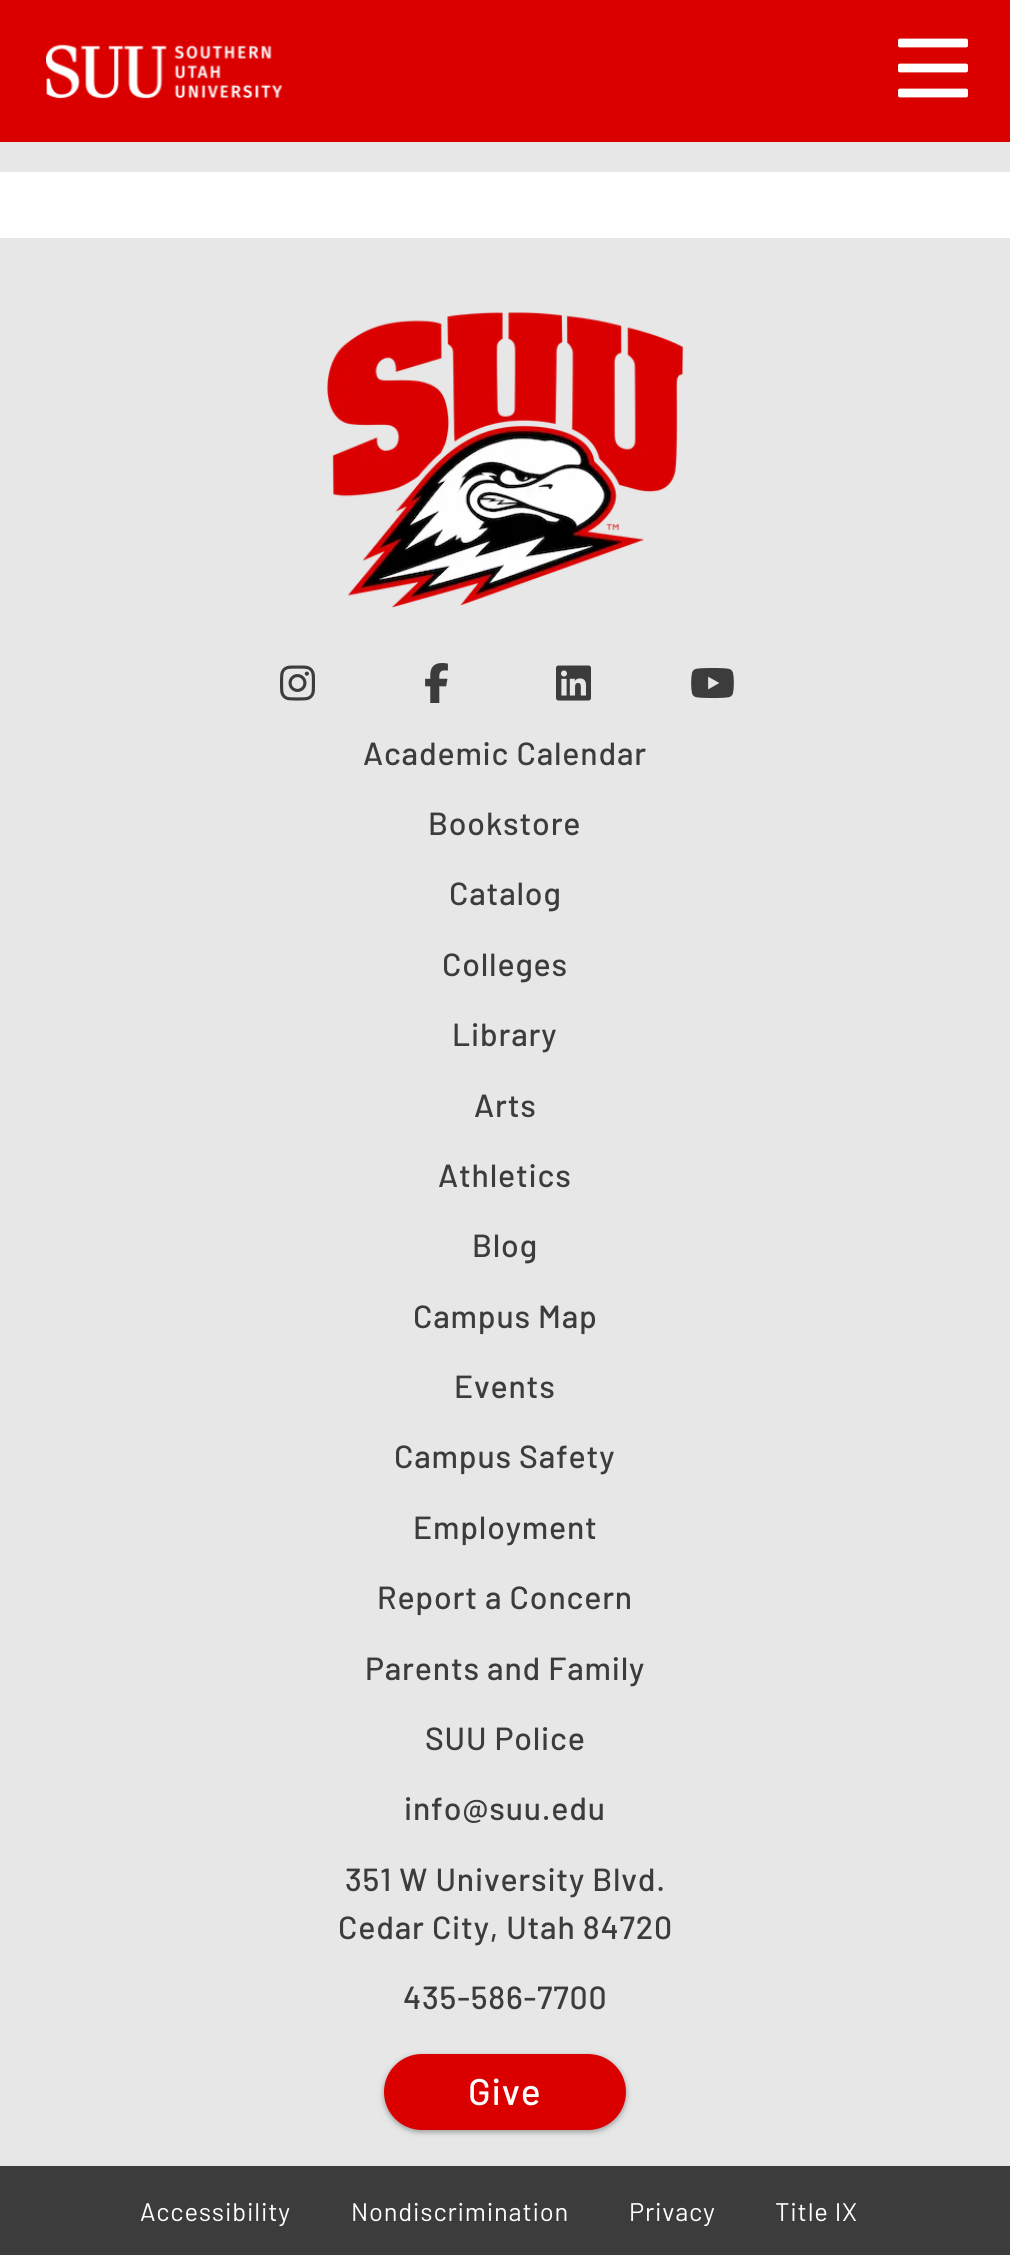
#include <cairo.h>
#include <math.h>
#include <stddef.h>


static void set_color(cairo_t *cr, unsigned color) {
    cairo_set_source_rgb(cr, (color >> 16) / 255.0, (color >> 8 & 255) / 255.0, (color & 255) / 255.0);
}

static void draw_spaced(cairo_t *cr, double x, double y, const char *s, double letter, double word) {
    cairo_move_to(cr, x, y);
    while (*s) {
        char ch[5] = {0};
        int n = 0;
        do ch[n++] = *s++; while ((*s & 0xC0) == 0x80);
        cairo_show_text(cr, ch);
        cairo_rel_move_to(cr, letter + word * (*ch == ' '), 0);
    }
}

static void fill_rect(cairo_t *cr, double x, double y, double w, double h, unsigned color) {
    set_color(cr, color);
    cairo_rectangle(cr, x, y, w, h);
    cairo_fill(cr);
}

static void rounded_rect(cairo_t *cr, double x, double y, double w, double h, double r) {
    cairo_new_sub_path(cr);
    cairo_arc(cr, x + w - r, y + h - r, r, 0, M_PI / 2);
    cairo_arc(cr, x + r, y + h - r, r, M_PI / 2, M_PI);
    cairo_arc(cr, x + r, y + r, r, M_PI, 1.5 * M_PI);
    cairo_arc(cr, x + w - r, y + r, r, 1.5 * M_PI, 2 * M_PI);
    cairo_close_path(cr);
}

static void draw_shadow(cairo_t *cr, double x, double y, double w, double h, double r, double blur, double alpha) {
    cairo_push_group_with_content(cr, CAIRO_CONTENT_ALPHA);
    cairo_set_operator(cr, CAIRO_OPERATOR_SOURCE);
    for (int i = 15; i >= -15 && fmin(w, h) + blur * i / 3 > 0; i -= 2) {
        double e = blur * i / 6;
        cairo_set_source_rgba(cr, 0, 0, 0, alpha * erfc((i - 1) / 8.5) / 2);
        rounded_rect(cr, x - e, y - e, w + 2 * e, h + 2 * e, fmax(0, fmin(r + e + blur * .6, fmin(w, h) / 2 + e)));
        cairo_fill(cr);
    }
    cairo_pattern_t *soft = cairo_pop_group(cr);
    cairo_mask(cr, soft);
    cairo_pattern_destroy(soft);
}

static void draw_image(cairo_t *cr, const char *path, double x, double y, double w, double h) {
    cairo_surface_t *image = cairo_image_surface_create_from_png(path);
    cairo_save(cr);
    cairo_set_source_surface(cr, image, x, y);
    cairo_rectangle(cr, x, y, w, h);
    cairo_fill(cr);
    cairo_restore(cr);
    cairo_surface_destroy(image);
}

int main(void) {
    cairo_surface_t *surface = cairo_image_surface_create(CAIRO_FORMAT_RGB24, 1010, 2255);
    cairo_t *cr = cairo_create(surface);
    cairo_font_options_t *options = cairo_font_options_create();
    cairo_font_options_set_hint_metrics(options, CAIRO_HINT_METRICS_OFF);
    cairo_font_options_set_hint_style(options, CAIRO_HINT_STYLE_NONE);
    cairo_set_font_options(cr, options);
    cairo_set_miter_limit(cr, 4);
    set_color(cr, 0xFFFFFF);
    cairo_paint(cr);
    fill_rect(cr, 0, 0, 1010, 142, 0xDB0000);
    fill_rect(cr, 0, 142, 1010, 30, 0xE7E7E7);
    draw_image(cr, "assets/img1.png", 46, 44, 236, 55);
    draw_image(cr, "assets/img2.png", 898, 38, 70, 60);
    fill_rect(cr, 0, 238, 1010, 1928, 0xE7E7E7);
    draw_image(cr, "assets/img3.png", 327, 312, 357, 296);
    draw_image(cr, "assets/img4.png", 280, 665, 35, 36);
    draw_image(cr, "assets/img5.png", 425, 663, 23, 40);
    draw_image(cr, "assets/img6.png", 556, 665, 35, 36);
    draw_image(cr, "assets/img7.png", 691, 668, 43, 30);
    cairo_select_font_face(cr, "Barlow Medium", CAIRO_FONT_SLANT_NORMAL, CAIRO_FONT_WEIGHT_NORMAL);
    cairo_set_font_size(cr, 32);
    set_color(cr, 0x3C3C3C);
    draw_spaced(cr, 363, 765, "Academic Calendar", 0.8, 0);
    draw_spaced(cr, 428, 835, "Bookstore", 0.8, 0);
    draw_spaced(cr, 449, 905, "Catalog", 0.8, 0);
    draw_spaced(cr, 442, 976, "Colleges", 0.8, 0);
    draw_spaced(cr, 452, 1046, "Library", 0.8, 0);
    draw_spaced(cr, 474, 1117, "Arts", 0.8, 0);
    draw_spaced(cr, 438, 1187, "Athletics", 0.8, 0);
    draw_spaced(cr, 472, 1257, "Blog", 0.8, 0);
    draw_spaced(cr, 413, 1328, "Campus Map", 0.8, 0);
    draw_spaced(cr, 454, 1398, "Events", 0.8, 0);
    draw_spaced(cr, 394, 1468, "Campus Safety", 0.8, 0);
    draw_spaced(cr, 413, 1539, "Employment", 0.8, 0);
    draw_spaced(cr, 377, 1609, "Report a Concern", 0.8, 0);
    draw_spaced(cr, 365, 1680, "Parents and Family", 0.8, 0);
    draw_spaced(cr, 425, 1750, "SUU Police", 0.8, 0);
    draw_spaced(cr, 404, 1820, "info@suu.edu", 0.8, 0);
    draw_spaced(cr, 345, 1891, "351 W University Blvd.", 0.8, 0);
    draw_spaced(cr, 338, 1939, "Cedar City, Utah 84720", 0.8, 0);
    draw_spaced(cr, 403, 2009, "435-586-7700", 0.8, 0);
    set_color(cr, 0x3C4043);
    draw_shadow(cr, 382, 2054, 246, 80, 40, 3, 0.15);
    draw_shadow(cr, 384, 2056, 242, 76, 38, 2, 0.3);
    set_color(cr, 0xDB0000);
    rounded_rect(cr, 386, 2056, 238, 72, 36);
    cairo_fill_preserve(cr);
    cairo_set_line_width(cr, 4);
    cairo_stroke(cr);
    cairo_set_font_size(cr, 37);
    set_color(cr, 0xFFFFFF);
    draw_spaced(cr, 468, 2105, "Give", 0.8, 0);
    fill_rect(cr, 0, 2166, 1010, 89, 0x3C3C3C);
    cairo_select_font_face(cr, "Barlow", CAIRO_FONT_SLANT_NORMAL, CAIRO_FONT_WEIGHT_NORMAL);
    cairo_set_font_size(cr, 25.5);
    set_color(cr, 0xFFFFFF);
    draw_spaced(cr, 140, 2221, "Accessibility", 0.8, 0);
    draw_spaced(cr, 351, 2221, "Nondiscrimination", 0.8, 0);
    draw_spaced(cr, 629, 2221, "Privacy", 0.8, 0);
    draw_spaced(cr, 775, 2221, "Title IX", 0.8, 0);
    cairo_surface_write_to_png(surface, "output.png");
    cairo_font_options_destroy(options);
    cairo_destroy(cr);
    cairo_surface_destroy(surface);
    return 0;
}
